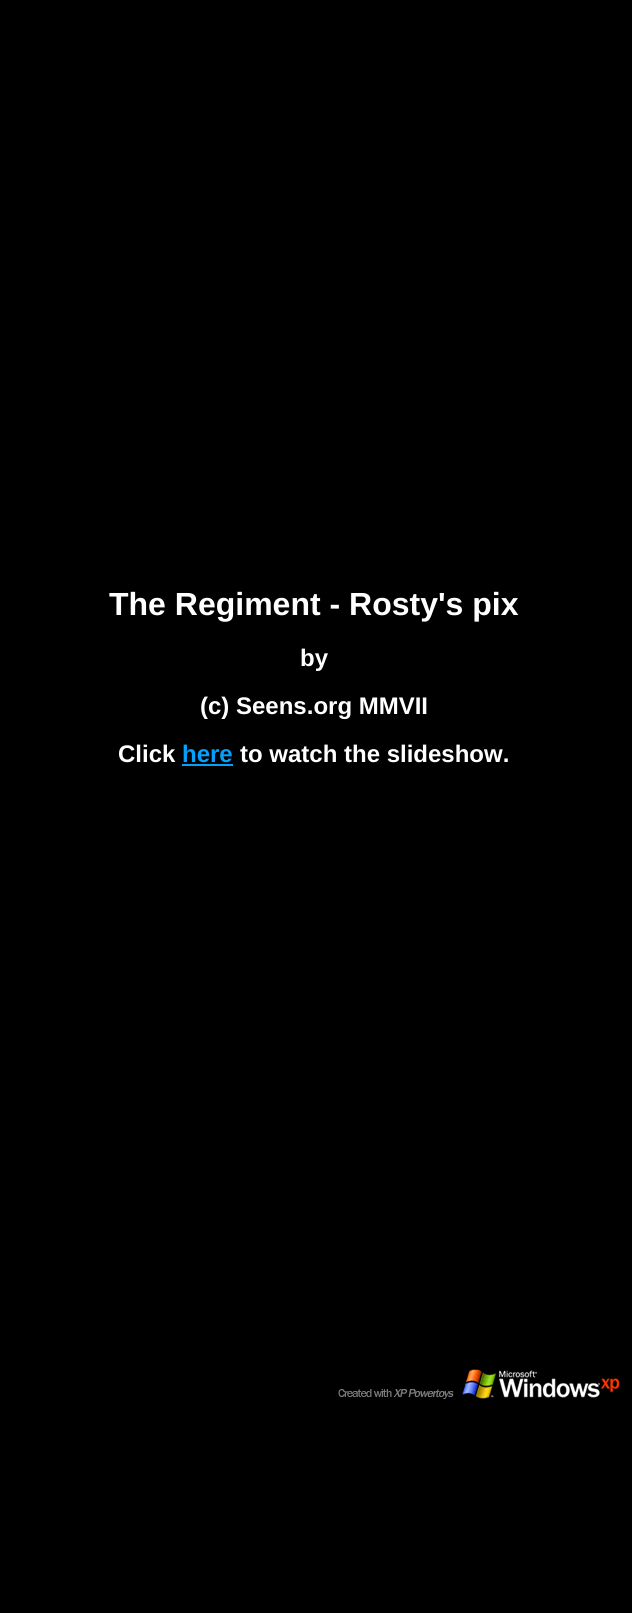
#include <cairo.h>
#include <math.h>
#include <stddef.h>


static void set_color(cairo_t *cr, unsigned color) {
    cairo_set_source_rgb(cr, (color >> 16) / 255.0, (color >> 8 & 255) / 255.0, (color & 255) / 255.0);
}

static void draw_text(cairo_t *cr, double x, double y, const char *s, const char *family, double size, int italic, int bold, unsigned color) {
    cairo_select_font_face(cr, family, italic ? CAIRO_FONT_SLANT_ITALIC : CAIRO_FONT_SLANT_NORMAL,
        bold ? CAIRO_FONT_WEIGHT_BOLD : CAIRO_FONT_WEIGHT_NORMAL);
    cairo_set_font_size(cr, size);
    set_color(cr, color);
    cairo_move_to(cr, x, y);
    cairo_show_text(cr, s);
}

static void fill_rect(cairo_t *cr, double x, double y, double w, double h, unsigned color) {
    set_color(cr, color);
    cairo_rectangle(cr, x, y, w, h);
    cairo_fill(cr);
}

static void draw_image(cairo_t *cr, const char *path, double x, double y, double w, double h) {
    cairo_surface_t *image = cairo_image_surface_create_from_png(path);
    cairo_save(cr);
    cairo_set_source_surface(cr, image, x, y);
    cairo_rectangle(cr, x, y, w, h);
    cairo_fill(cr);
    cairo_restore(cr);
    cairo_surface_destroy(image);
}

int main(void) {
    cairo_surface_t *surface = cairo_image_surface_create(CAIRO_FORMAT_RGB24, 632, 1613);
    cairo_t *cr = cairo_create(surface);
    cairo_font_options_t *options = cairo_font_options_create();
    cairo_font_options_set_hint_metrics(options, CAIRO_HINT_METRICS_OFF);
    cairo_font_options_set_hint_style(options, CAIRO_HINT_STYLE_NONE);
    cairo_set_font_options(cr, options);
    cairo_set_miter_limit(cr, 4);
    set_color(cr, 0x000000);
    cairo_paint(cr);
    draw_text(cr, 109, 615, "The Regiment - Rosty's pix", "Liberation Sans", 32, 0, 1, 0xFFFFFF);
    draw_text(cr, 300, 666, "by", "Liberation Sans", 24, 0, 1, 0xFFFFFF);
    draw_text(cr, 200, 714, "(c) Seens.org MMVII", "Liberation Sans", 24, 0, 1, 0xFFFFFF);
    draw_text(cr, 118, 762, "Click", "Liberation Sans", 24, 0, 1, 0xFFFFFF);
    draw_text(cr, 182, 762, "here", "Liberation Sans", 24, 0, 1, 0x03A0FC);
    fill_rect(cr, 182, 764, 51, 2, 0x03A0FC);
    draw_text(cr, 240, 762, "to watch the slideshow.", "Liberation Sans", 24, 0, 1, 0xFFFFFF);
    draw_image(cr, "assets/img1.png", 338, 1369, 282, 30);
    cairo_surface_write_to_png(surface, "output.png");
    cairo_font_options_destroy(options);
    cairo_destroy(cr);
    cairo_surface_destroy(surface);
    return 0;
}
